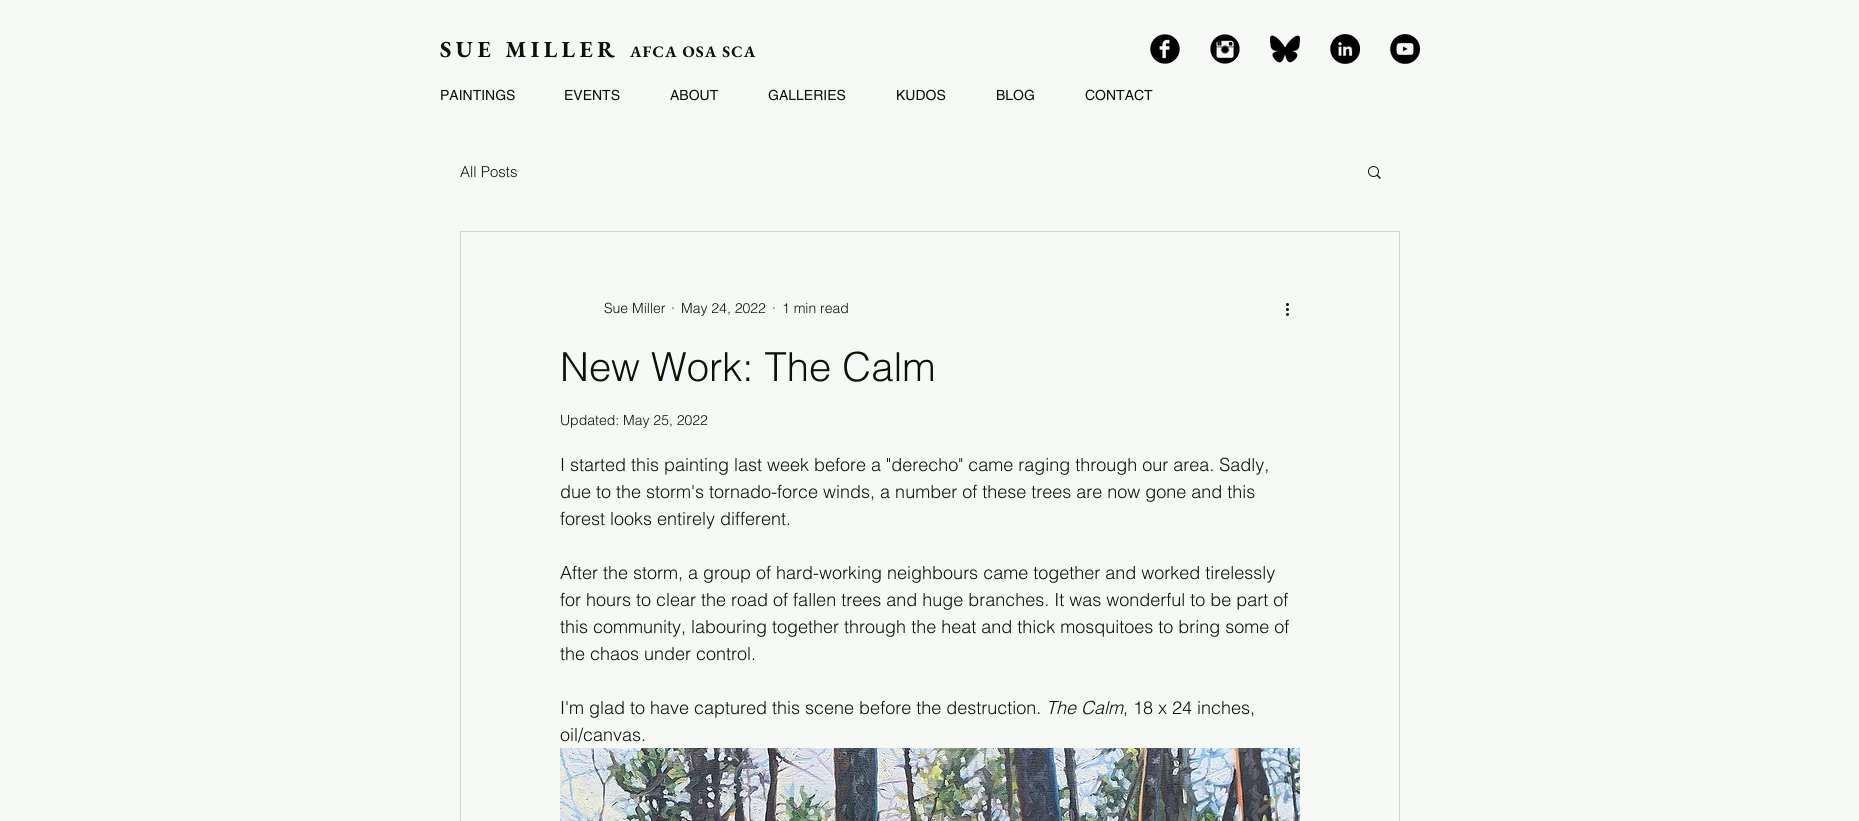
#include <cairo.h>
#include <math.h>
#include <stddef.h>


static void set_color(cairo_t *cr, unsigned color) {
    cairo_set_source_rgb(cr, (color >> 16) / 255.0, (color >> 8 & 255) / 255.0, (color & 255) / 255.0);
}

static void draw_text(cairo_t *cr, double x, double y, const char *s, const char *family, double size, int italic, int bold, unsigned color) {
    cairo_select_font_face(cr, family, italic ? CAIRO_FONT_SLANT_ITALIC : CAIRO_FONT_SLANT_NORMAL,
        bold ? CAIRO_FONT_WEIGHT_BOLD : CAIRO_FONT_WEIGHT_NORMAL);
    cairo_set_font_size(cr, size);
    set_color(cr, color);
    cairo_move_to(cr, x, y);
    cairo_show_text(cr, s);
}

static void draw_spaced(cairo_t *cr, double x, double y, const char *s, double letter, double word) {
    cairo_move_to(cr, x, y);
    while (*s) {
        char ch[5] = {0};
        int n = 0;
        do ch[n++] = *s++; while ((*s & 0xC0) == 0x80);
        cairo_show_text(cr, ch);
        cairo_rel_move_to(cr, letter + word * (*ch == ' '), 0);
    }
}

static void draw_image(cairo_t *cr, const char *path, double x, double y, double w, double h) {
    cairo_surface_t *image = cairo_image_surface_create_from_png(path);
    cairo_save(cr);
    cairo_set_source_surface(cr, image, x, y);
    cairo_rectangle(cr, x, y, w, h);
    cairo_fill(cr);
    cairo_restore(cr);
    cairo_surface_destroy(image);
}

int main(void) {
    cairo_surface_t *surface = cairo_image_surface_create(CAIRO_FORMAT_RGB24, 1859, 821);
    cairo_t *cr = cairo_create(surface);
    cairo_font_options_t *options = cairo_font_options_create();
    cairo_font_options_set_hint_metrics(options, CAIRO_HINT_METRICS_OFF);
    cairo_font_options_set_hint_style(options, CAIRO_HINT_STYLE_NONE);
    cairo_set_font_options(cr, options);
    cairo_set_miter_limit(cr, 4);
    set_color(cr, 0xF6F9F5);
    cairo_paint(cr);
    cairo_select_font_face(cr, "EB Garamond", CAIRO_FONT_SLANT_NORMAL, CAIRO_FONT_WEIGHT_BOLD);
    cairo_set_font_size(cr, 23);
    set_color(cr, 0x091405);
    draw_spaced(cr, 440, 57, "SUE MILLER", 4.5, 0);
    cairo_set_font_size(cr, 16);
    draw_spaced(cr, 630, 57, "AFCA OSA SCA", 1.1, 0);
    draw_image(cr, "assets/img1.png", 1150, 34, 30, 30);
    draw_image(cr, "assets/img2.png", 1210, 34, 30, 30);
    draw_image(cr, "assets/img3.png", 1270, 35, 30, 28);
    draw_image(cr, "assets/img4.png", 1330, 34, 30, 30);
    draw_image(cr, "assets/img5.png", 1390, 34, 30, 30);
    draw_text(cr, 440, 100, "PAINTINGS", "helvetica", 14, 0, 0, 0x091405);
    draw_text(cr, 564, 100, "EVENTS", "helvetica", 14, 0, 0, 0x091405);
    draw_text(cr, 670, 100, "ABOUT", "helvetica", 14, 0, 0, 0x091405);
    draw_text(cr, 768, 100, "GALLERIES", "helvetica", 14, 0, 0, 0x091405);
    draw_text(cr, 896, 100, "KUDOS", "helvetica", 14, 0, 0, 0x091405);
    draw_text(cr, 996, 100, "BLOG", "helvetica", 14, 0, 0, 0x091405);
    draw_text(cr, 1085, 100, "CONTACT", "helvetica", 14, 0, 0, 0x091405);
    draw_text(cr, 460, 177, "All Posts", "helvetica Light", 15, 0, 0, 0x091405);
    draw_image(cr, "assets/img6.png", 1368, 166, 13, 13);
    cairo_rectangle(cr, 460.5, 231.5, 939, 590);
    set_color(cr, 0xD1D4D0);
    cairo_set_line_width(cr, 1);
    cairo_stroke(cr);
    draw_text(cr, 604, 313, "Sue Miller", "helvetica Light", 14, 0, 0, 0x091405);
    draw_text(cr, 671, 313, "·", "helvetica Light", 14, 0, 0, 0x091405);
    draw_text(cr, 681, 313, "May 24, 2022", "helvetica Light", 14, 0, 0, 0x091405);
    draw_text(cr, 772, 313, "·", "helvetica Light", 14, 0, 0, 0x091405);
    draw_text(cr, 782, 313, "1 min read", "helvetica Light", 14, 0, 0, 0x091405);
    draw_image(cr, "assets/img7.png", 1286, 303, 3, 13);
    draw_text(cr, 560, 381, "New Work: The Calm", "helvetica Light", 40, 0, 0, 0x091405);
    draw_text(cr, 560, 425, "Updated: May 25, 2022", "helvetica Light", 14, 0, 0, 0x091405);
    draw_text(cr, 560, 471, "I started this painting last week before a \"derecho\" came raging through our area. Sadly,", "helvetica Light", 18, 0, 0, 0x091405);
    draw_text(cr, 560, 498, "due to the storm's tornado-force winds, a number of these trees are now gone and this", "helvetica Light", 18, 0, 0, 0x091405);
    draw_text(cr, 560, 525, "forest looks entirely different.", "helvetica Light", 18, 0, 0, 0x091405);
    draw_text(cr, 560, 579, "After the storm, a group of hard-working neighbours came together and worked tirelessly", "helvetica Light", 18, 0, 0, 0x091405);
    draw_text(cr, 560, 606, "for hours to clear the road of fallen trees and huge branches. It was wonderful to be part of", "helvetica Light", 18, 0, 0, 0x091405);
    draw_text(cr, 560, 633, "this community, labouring together through the heat and thick mosquitoes to bring some of", "helvetica Light", 18, 0, 0, 0x091405);
    draw_text(cr, 560, 660, "the chaos under control.", "helvetica Light", 18, 0, 0, 0x091405);
    draw_text(cr, 560, 714, "I'm glad to have captured this scene before the destruction.", "helvetica Light", 18, 0, 0, 0x091405);
    draw_text(cr, 1046, 714, "The Calm", "helvetica Light", 18, 1, 0, 0x091405);
    draw_text(cr, 1123, 714, ", 18 x 24 inches,", "helvetica Light", 18, 0, 0, 0x091405);
    draw_text(cr, 560, 741, "oil/canvas.", "helvetica Light", 18, 0, 0, 0x091405);
    draw_image(cr, "assets/img8.png", 560, 748, 740, 73);
    cairo_surface_write_to_png(surface, "output.png");
    cairo_font_options_destroy(options);
    cairo_destroy(cr);
    cairo_surface_destroy(surface);
    return 0;
}
